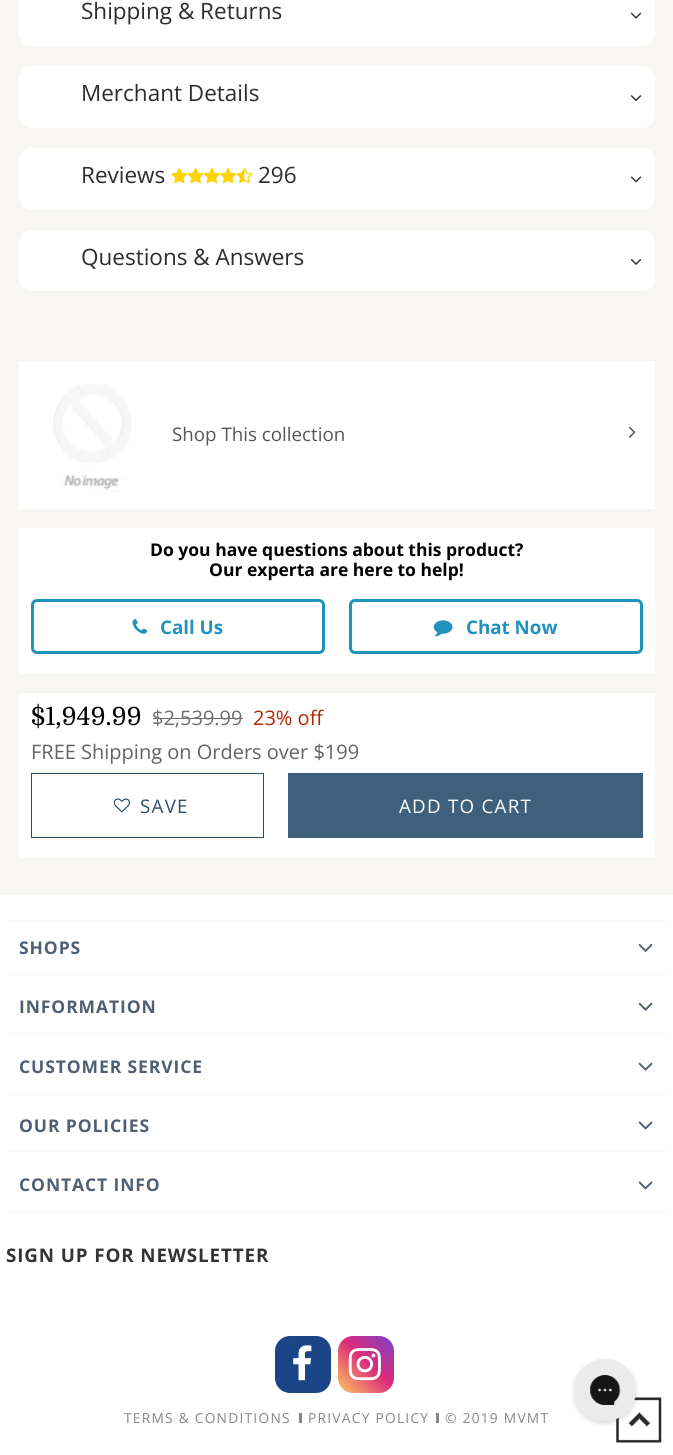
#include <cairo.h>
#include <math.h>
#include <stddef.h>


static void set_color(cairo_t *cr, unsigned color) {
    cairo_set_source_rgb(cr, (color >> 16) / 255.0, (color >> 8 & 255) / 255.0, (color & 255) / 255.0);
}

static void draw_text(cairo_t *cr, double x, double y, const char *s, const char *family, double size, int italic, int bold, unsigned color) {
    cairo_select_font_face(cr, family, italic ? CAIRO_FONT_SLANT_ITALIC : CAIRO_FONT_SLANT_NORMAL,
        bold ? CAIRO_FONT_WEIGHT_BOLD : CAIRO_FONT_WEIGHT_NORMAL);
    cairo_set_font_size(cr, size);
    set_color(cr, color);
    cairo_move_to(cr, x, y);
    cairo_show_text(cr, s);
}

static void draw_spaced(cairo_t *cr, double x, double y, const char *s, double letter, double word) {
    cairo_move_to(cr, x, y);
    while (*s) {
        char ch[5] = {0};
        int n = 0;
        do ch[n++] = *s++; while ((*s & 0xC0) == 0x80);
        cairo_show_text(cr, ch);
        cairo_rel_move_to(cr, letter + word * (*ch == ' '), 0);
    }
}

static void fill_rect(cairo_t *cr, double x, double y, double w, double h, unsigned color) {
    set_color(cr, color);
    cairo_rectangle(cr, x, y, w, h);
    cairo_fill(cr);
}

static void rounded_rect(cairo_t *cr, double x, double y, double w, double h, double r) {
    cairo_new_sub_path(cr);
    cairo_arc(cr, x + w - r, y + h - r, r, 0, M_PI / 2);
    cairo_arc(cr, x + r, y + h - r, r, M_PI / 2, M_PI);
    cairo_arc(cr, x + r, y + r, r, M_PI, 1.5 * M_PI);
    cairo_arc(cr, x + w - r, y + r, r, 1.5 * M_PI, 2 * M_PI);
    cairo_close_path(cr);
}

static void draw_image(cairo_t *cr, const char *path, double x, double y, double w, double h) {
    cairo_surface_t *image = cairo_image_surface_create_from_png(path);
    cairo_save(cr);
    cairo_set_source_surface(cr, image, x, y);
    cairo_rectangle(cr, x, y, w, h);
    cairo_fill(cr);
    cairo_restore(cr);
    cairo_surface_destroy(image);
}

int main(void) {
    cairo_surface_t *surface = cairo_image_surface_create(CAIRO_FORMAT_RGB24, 673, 1455);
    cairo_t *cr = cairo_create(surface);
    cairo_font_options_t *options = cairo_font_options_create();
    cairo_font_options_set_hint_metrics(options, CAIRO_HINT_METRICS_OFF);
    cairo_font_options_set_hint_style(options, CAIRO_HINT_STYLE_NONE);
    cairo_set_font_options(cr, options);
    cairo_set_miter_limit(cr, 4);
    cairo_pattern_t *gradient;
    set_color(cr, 0xFFFFFF);
    cairo_paint(cr);
    fill_rect(cr, 0, 0, 673, 895, 0xF8F6F3);
    set_color(cr, 0xFFFFFF);
    rounded_rect(cr, 19, -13, 636, 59, 13);
    cairo_fill(cr);
    draw_text(cr, 81, 19, "Shipping & Returns", "Open Sans", 22.5, 0, 0, 0x2D2D2D);
    draw_image(cr, "assets/img1.png", 630, 12, 12, 7);
    set_color(cr, 0xFFFFFF);
    rounded_rect(cr, 19, 66, 636, 62, 13);
    cairo_fill(cr);
    draw_text(cr, 81, 101, "Merchant Details", "Open Sans", 22.5, 0, 0, 0x2D2D2D);
    draw_image(cr, "assets/img2.png", 630, 95, 12, 7);
    set_color(cr, 0xFFFFFF);
    rounded_rect(cr, 19, 148, 636, 62, 13);
    cairo_fill(cr);
    draw_text(cr, 81, 183, "Reviews", "Open Sans", 22.5, 0, 0, 0x2D2D2D);
    draw_image(cr, "assets/img3.png", 171, 167, 17, 17);
    draw_image(cr, "assets/img4.png", 187, 167, 17, 17);
    draw_image(cr, "assets/img5.png", 203, 167, 17, 17);
    draw_image(cr, "assets/img6.png", 220, 167, 17, 17);
    draw_image(cr, "assets/img7.png", 236, 167, 17, 17);
    draw_text(cr, 258, 183, "296", "Open Sans", 22.5, 0, 0, 0x2D2D2D);
    draw_image(cr, "assets/img8.png", 630, 176, 12, 7);
    set_color(cr, 0xFFFFFF);
    rounded_rect(cr, 19, 230, 636, 61, 13);
    cairo_fill(cr);
    draw_text(cr, 81, 265, "Questions & Answers", "Open Sans", 22.5, 0, 0, 0x2D2D2D);
    draw_image(cr, "assets/img9.png", 630, 258, 12, 7);
    fill_rect(cr, 19, 361, 636, 148, 0xFFFFFF);
    draw_image(cr, "assets/img10.png", 53, 384, 79, 108);
    draw_text(cr, 172, 441, "Shop This collection", "Open Sans", 18.75, 0, 0, 0x555555);
    draw_image(cr, "assets/img11.png", 629, 426, 7, 12);
    fill_rect(cr, 19, 528, 636, 146, 0xFFFFFF);
    draw_text(cr, 150, 556, "Do you have questions about this product?", "Open Sans", 17.5, 0, 1, 0x000000);
    draw_text(cr, 209, 576, "Our experta are here to help!", "Open Sans", 17.5, 0, 1, 0x000000);
    rounded_rect(cr, 32.5, 600.5, 291, 52, 4.5);
    set_color(cr, 0x2092BE);
    cairo_set_line_width(cr, 3);
    cairo_stroke(cr);
    draw_image(cr, "assets/img12.png", 132, 619, 16, 15);
    draw_text(cr, 160, 634, "Call Us", "Open Sans", 18.75, 0, 1, 0x2092BE);
    rounded_rect(cr, 350.5, 600.5, 291, 52, 4.5);
    cairo_stroke(cr);
    draw_image(cr, "assets/img13.png", 433, 620, 20, 17);
    draw_text(cr, 466, 634, "Chat Now", "Open Sans", 18.75, 0, 1, 0x2092BE);
    fill_rect(cr, 19, 693, 636, 165, 0xFFFFFF);
    draw_text(cr, 31, 725, "$1,949.99", "Domine", 25, 0, 0, 0x000000);
    draw_text(cr, 152, 725, "$2,539.99", "Open Sans", 20, 0, 0, 0x6F6F6F);
    fill_rect(cr, 153, 718, 90, 1, 0x6F6F6F);
    draw_text(cr, 253, 725, "23% off", "Open Sans", 20, 0, 0, 0xB12704);
    draw_text(cr, 31, 759, "FREE Shipping on Orders over $199", "Open Sans", 20, 0, 0, 0x636363);
    cairo_rectangle(cr, 31.5, 773.5, 232, 64);
    set_color(cr, 0x284E6E);
    cairo_set_line_width(cr, 1);
    cairo_stroke(cr);
    draw_image(cr, "assets/img14.png", 113, 798, 17, 15);
    cairo_set_font_size(cr, 18.75);
    draw_spaced(cr, 140, 813, "SAVE", 1.25, 0);
    fill_rect(cr, 288, 773, 355, 65, 0x3E607D);
    set_color(cr, 0xFFFFFF);
    draw_spaced(cr, 399, 813, "ADD TO CART", 1.25, 0);
    fill_rect(cr, 6, 920, 662, 1, 0xF7F8F9);
    fill_rect(cr, 6, 974, 662, 1, 0xF7F8F9);
    cairo_select_font_face(cr, "Open Sans", CAIRO_FONT_SLANT_NORMAL, CAIRO_FONT_WEIGHT_BOLD);
    cairo_set_font_size(cr, 17.5);
    set_color(cr, 0x4F6074);
    draw_spaced(cr, 19, 954, "SHOPS", 0.9, 0);
    draw_image(cr, "assets/img15.png", 638, 944, 15, 8);
    fill_rect(cr, 6, 1033, 662, 1, 0xF7F8F9);
    set_color(cr, 0x4F6074);
    draw_spaced(cr, 19, 1013, "INFORMATION", 0.9, 0);
    draw_image(cr, "assets/img16.png", 638, 1002, 15, 9);
    fill_rect(cr, 6, 1093, 662, 1, 0xF7F8F9);
    set_color(cr, 0x4F6074);
    draw_spaced(cr, 19, 1073, "CUSTOMER SERVICE", 0.9, 0);
    draw_image(cr, "assets/img16.png", 638, 1062, 15, 9);
    fill_rect(cr, 6, 1151, 662, 1, 0xF7F8F9);
    set_color(cr, 0x4F6074);
    draw_spaced(cr, 19, 1132, "OUR POLICIES", 0.9, 0);
    draw_image(cr, "assets/img17.png", 638, 1121, 15, 9);
    fill_rect(cr, 6, 1211, 662, 1, 0xF7F8F9);
    set_color(cr, 0x4F6074);
    draw_spaced(cr, 19, 1191, "CONTACT INFO", 0.9, 0);
    draw_image(cr, "assets/img17.png", 638, 1181, 15, 9);
    cairo_set_font_size(cr, 18.75);
    set_color(cr, 0x333333);
    draw_spaced(cr, 6, 1262, "SIGN UP FOR NEWSLETTER", 0.9, 0);
    set_color(cr, 0x1A4687);
    rounded_rect(cr, 275, 1336, 56, 57, 15);
    cairo_fill(cr);
    draw_image(cr, "assets/img18.png", 293, 1345, 19, 36);
    gradient = cairo_pattern_create_linear(338, 1393, 394, 1336);
    cairo_pattern_add_color_stop_rgba(gradient, 0, 0.992, 0.792, 0.373, 1);
    cairo_pattern_add_color_stop_rgba(gradient, 0.53, 0.863, 0.169, 0.482, 1);
    cairo_pattern_add_color_stop_rgba(gradient, 1, 0.475, 0.255, 0.784, 1);
    cairo_set_source(cr, gradient);
    cairo_pattern_destroy(gradient);
    rounded_rect(cr, 338, 1336, 56, 57, 15);
    cairo_fill(cr);
    draw_image(cr, "assets/img19.png", 348, 1348, 33, 33);
    cairo_select_font_face(cr, "Open Sans", CAIRO_FONT_SLANT_NORMAL, CAIRO_FONT_WEIGHT_NORMAL);
    cairo_set_font_size(cr, 13.75);
    set_color(cr, 0x868686);
    draw_spaced(cr, 124, 1423, "TERMS & CONDITIONS", 1.25, 0);
    fill_rect(cr, 299, 1413, 3, 10, 0x868686);
    draw_spaced(cr, 308, 1423, "PRIVACY POLICY", 1.25, 0);
    fill_rect(cr, 436, 1413, 3, 10, 0x868686);
    draw_spaced(cr, 445, 1423, "© 2019 MVMT", 1.25, 0);
    draw_image(cr, "assets/img20.png", 616, 1397, 46, 46);
    draw_image(cr, "assets/img21.png", 571, 1358, 68, 68);
    cairo_surface_write_to_png(surface, "output.png");
    cairo_font_options_destroy(options);
    cairo_destroy(cr);
    cairo_surface_destroy(surface);
    return 0;
}
